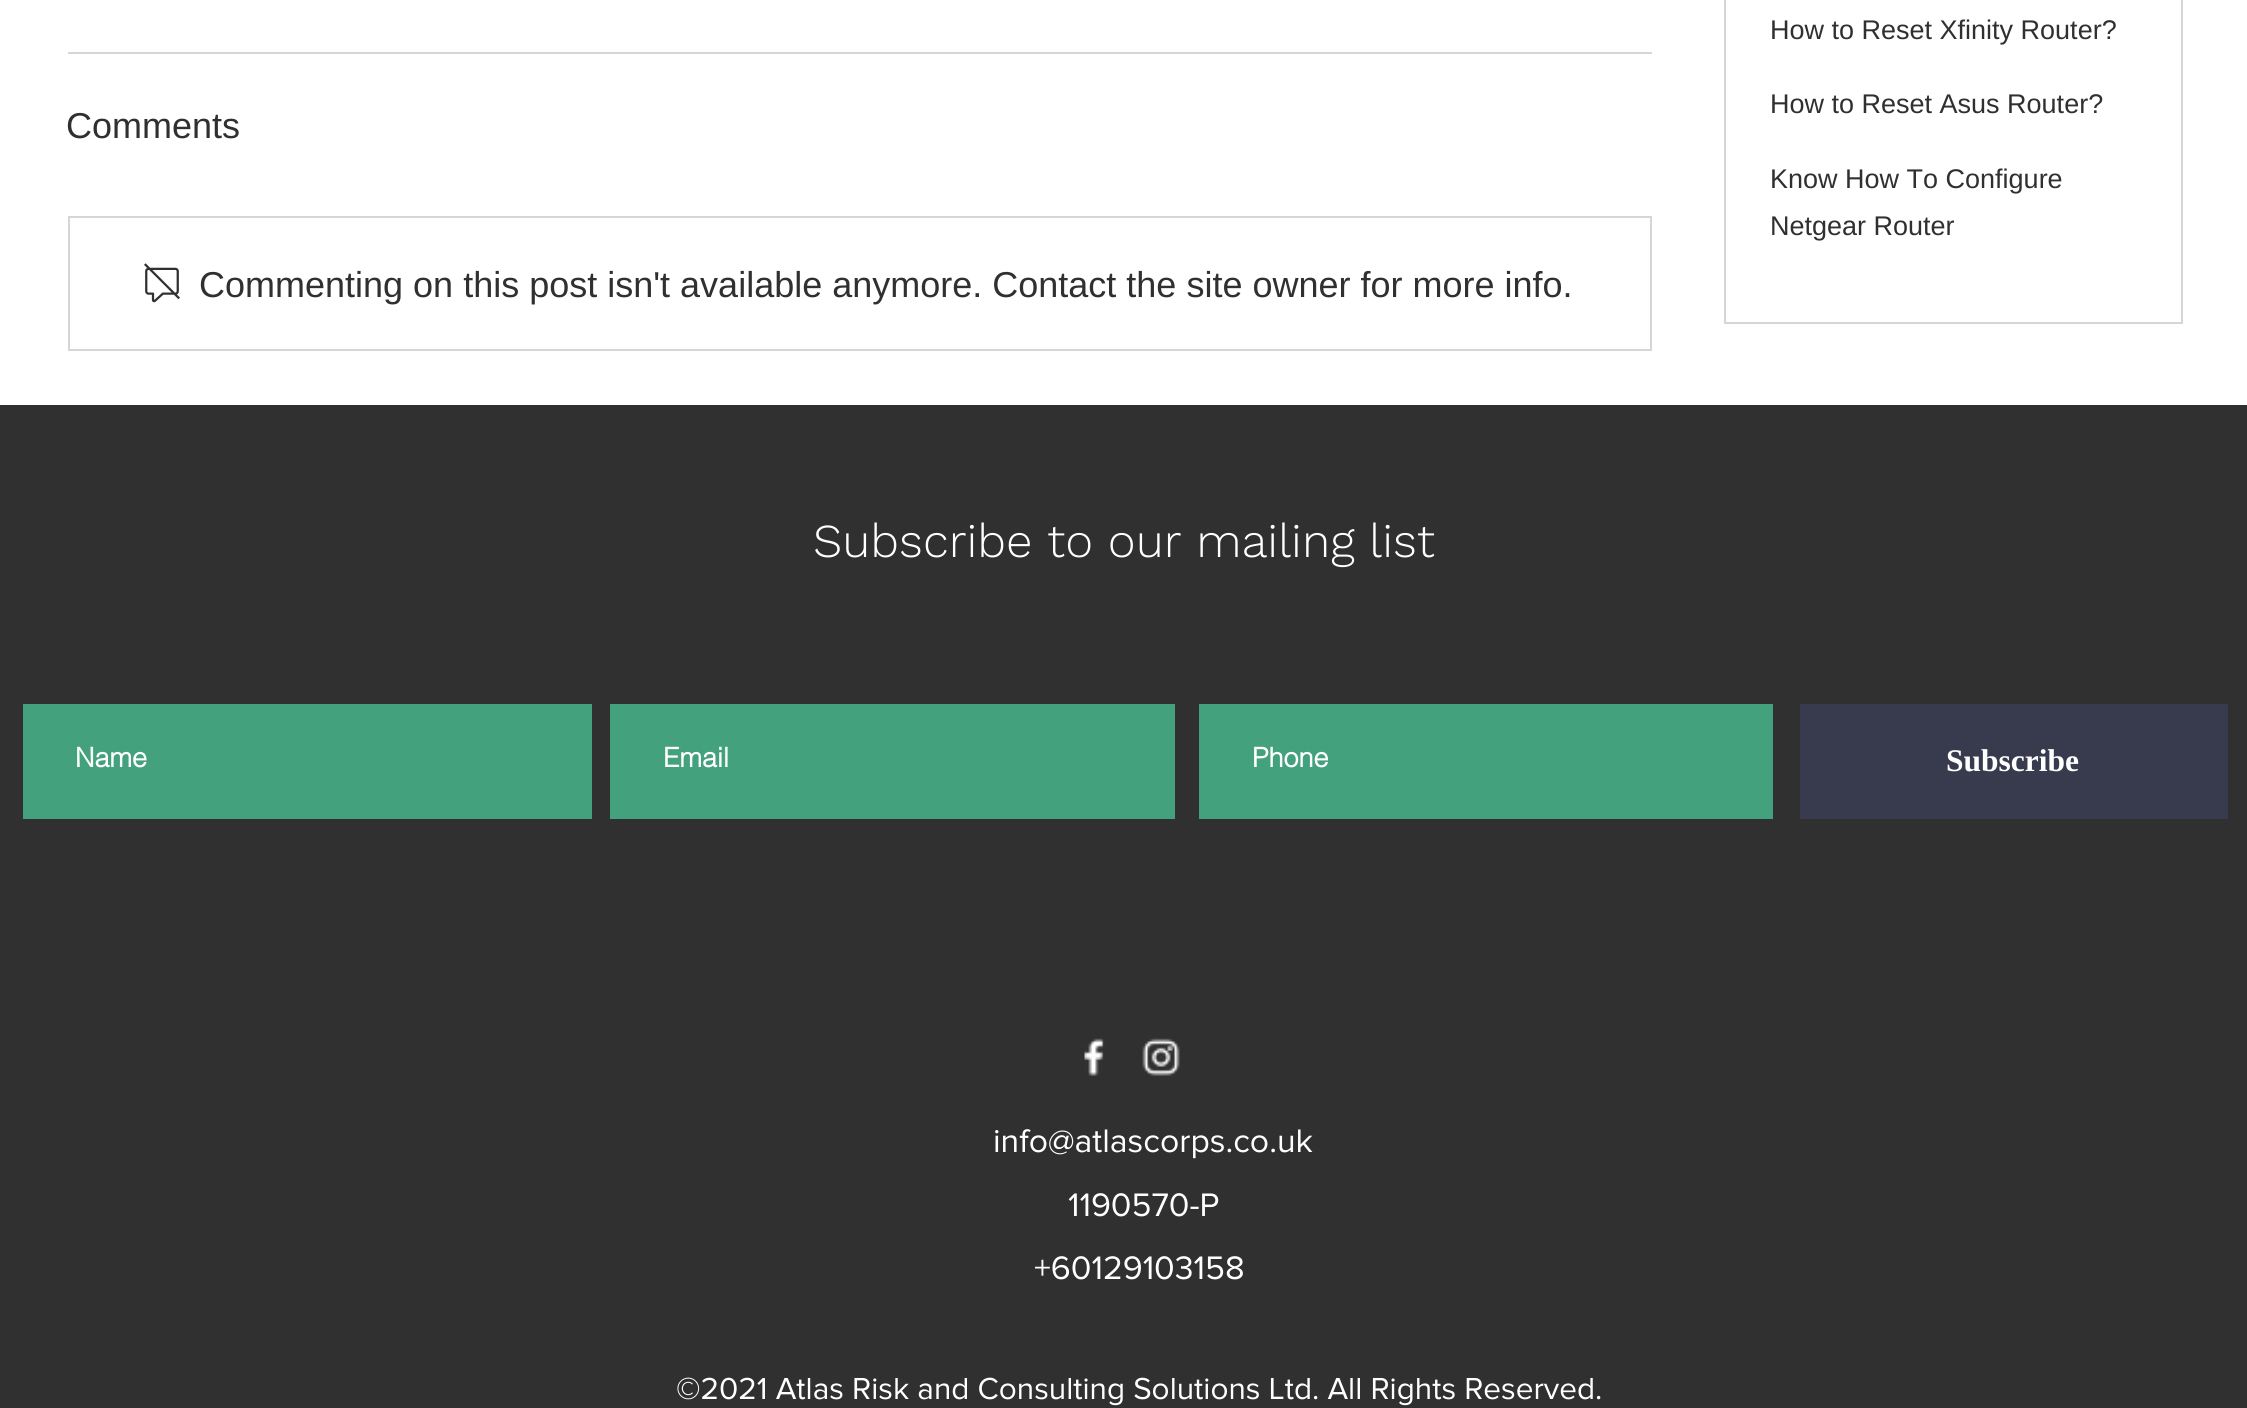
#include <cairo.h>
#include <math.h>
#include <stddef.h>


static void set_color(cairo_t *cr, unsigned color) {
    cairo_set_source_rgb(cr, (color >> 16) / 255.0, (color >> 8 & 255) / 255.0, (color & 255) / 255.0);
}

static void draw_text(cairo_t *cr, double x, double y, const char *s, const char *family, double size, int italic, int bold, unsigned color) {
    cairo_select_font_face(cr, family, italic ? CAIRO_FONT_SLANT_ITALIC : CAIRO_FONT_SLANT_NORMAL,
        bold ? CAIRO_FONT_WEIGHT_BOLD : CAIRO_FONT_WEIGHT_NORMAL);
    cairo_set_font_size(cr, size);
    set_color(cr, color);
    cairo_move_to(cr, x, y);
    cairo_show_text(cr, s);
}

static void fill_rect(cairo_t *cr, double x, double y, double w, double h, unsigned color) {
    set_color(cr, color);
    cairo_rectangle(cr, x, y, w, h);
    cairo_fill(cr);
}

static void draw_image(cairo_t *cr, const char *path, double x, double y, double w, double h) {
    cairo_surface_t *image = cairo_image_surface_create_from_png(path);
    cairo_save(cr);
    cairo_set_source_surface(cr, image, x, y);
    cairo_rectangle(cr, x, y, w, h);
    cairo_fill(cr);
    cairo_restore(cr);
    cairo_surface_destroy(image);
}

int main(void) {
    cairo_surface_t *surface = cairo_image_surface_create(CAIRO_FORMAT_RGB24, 2247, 1408);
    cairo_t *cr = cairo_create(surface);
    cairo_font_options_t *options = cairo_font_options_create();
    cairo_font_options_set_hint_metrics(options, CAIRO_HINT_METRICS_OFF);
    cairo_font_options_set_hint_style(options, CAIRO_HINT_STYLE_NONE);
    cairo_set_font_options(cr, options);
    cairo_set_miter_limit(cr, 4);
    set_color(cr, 0xFFFFFF);
    cairo_paint(cr);
    fill_rect(cr, 68, 52, 1584, 2, 0xD6D6D6);
    draw_text(cr, 66, 138, "Comments", "Liberation Sans", 36, 0, 0, 0x303030);
    cairo_rectangle(cr, 69, 217, 1582, 133);
    set_color(cr, 0xD6D6D6);
    cairo_stroke(cr);
    draw_image(cr, "assets/img1.png", 144, 263, 36, 40);
    draw_text(cr, 199, 297, "Commenting on this post isn't available anymore. Contact the site owner for more info.", "Liberation Sans", 36, 0, 0, 0x303030);
    cairo_rectangle(cr, 1725, -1, 457, 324);
    set_color(cr, 0xD6D6D6);
    cairo_stroke(cr);
    draw_text(cr, 1770, 39, "How to Reset Xfinity Router?", "Liberation Sans", 27, 0, 0, 0x303030);
    draw_text(cr, 1770, 113, "How to Reset Asus Router?", "Liberation Sans", 27, 0, 0, 0x303030);
    draw_text(cr, 1770, 188, "Know How To Configure", "Liberation Sans", 27, 0, 0, 0x303030);
    draw_text(cr, 1770, 235, "Netgear Router", "Liberation Sans", 27, 0, 0, 0x303030);
    fill_rect(cr, 0, 405, 2247, 1003, 0x303030);
    draw_text(cr, 813, 557, "Subscribe to our mailing list", "Work Sans Light", 47.25, 0, 0, 0xFFFFFF);
    fill_rect(cr, 23, 704, 569, 115, 0x43A17E);
    draw_text(cr, 75, 767, "Name", "helvetica", 27, 0, 1, 0xFFFFFF);
    fill_rect(cr, 610, 704, 565, 115, 0x43A17E);
    draw_text(cr, 663, 767, "Email", "helvetica", 27, 0, 1, 0xFFFFFF);
    fill_rect(cr, 1199, 704, 574, 115, 0x43A17E);
    draw_text(cr, 1252, 767, "Phone", "helvetica", 27, 0, 1, 0xFFFFFF);
    fill_rect(cr, 1800, 704, 428, 115, 0x373B4D);
    draw_text(cr, 1946, 771, "Subscribe", "Liberation Serif", 31.5, 0, 1, 0xFFFFFF);
    draw_image(cr, "assets/img2.png", 1084, 1038, 21, 38);
    draw_image(cr, "assets/img3.png", 1142, 1038, 38, 38);
    draw_text(cr, 993, 1152, "info@atlascorps.co.uk", "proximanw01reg", 33.75, 0, 0, 0xFFFFFF);
    draw_text(cr, 1068, 1216, "1190570-P", "proximanw01reg", 33.75, 0, 0, 0xFFFFFF);
    draw_text(cr, 1034, 1279, "+60129103158", "proximanw01reg", 33.75, 0, 0, 0xFFFFFF);
    draw_text(cr, 676, 1399, "©2021 Atlas Risk and Consulting Solutions Ltd. All Rights Reserved.", "proximanw01reg", 31.5, 0, 0, 0xFFFFFF);
    cairo_surface_write_to_png(surface, "output.png");
    cairo_font_options_destroy(options);
    cairo_destroy(cr);
    cairo_surface_destroy(surface);
    return 0;
}
